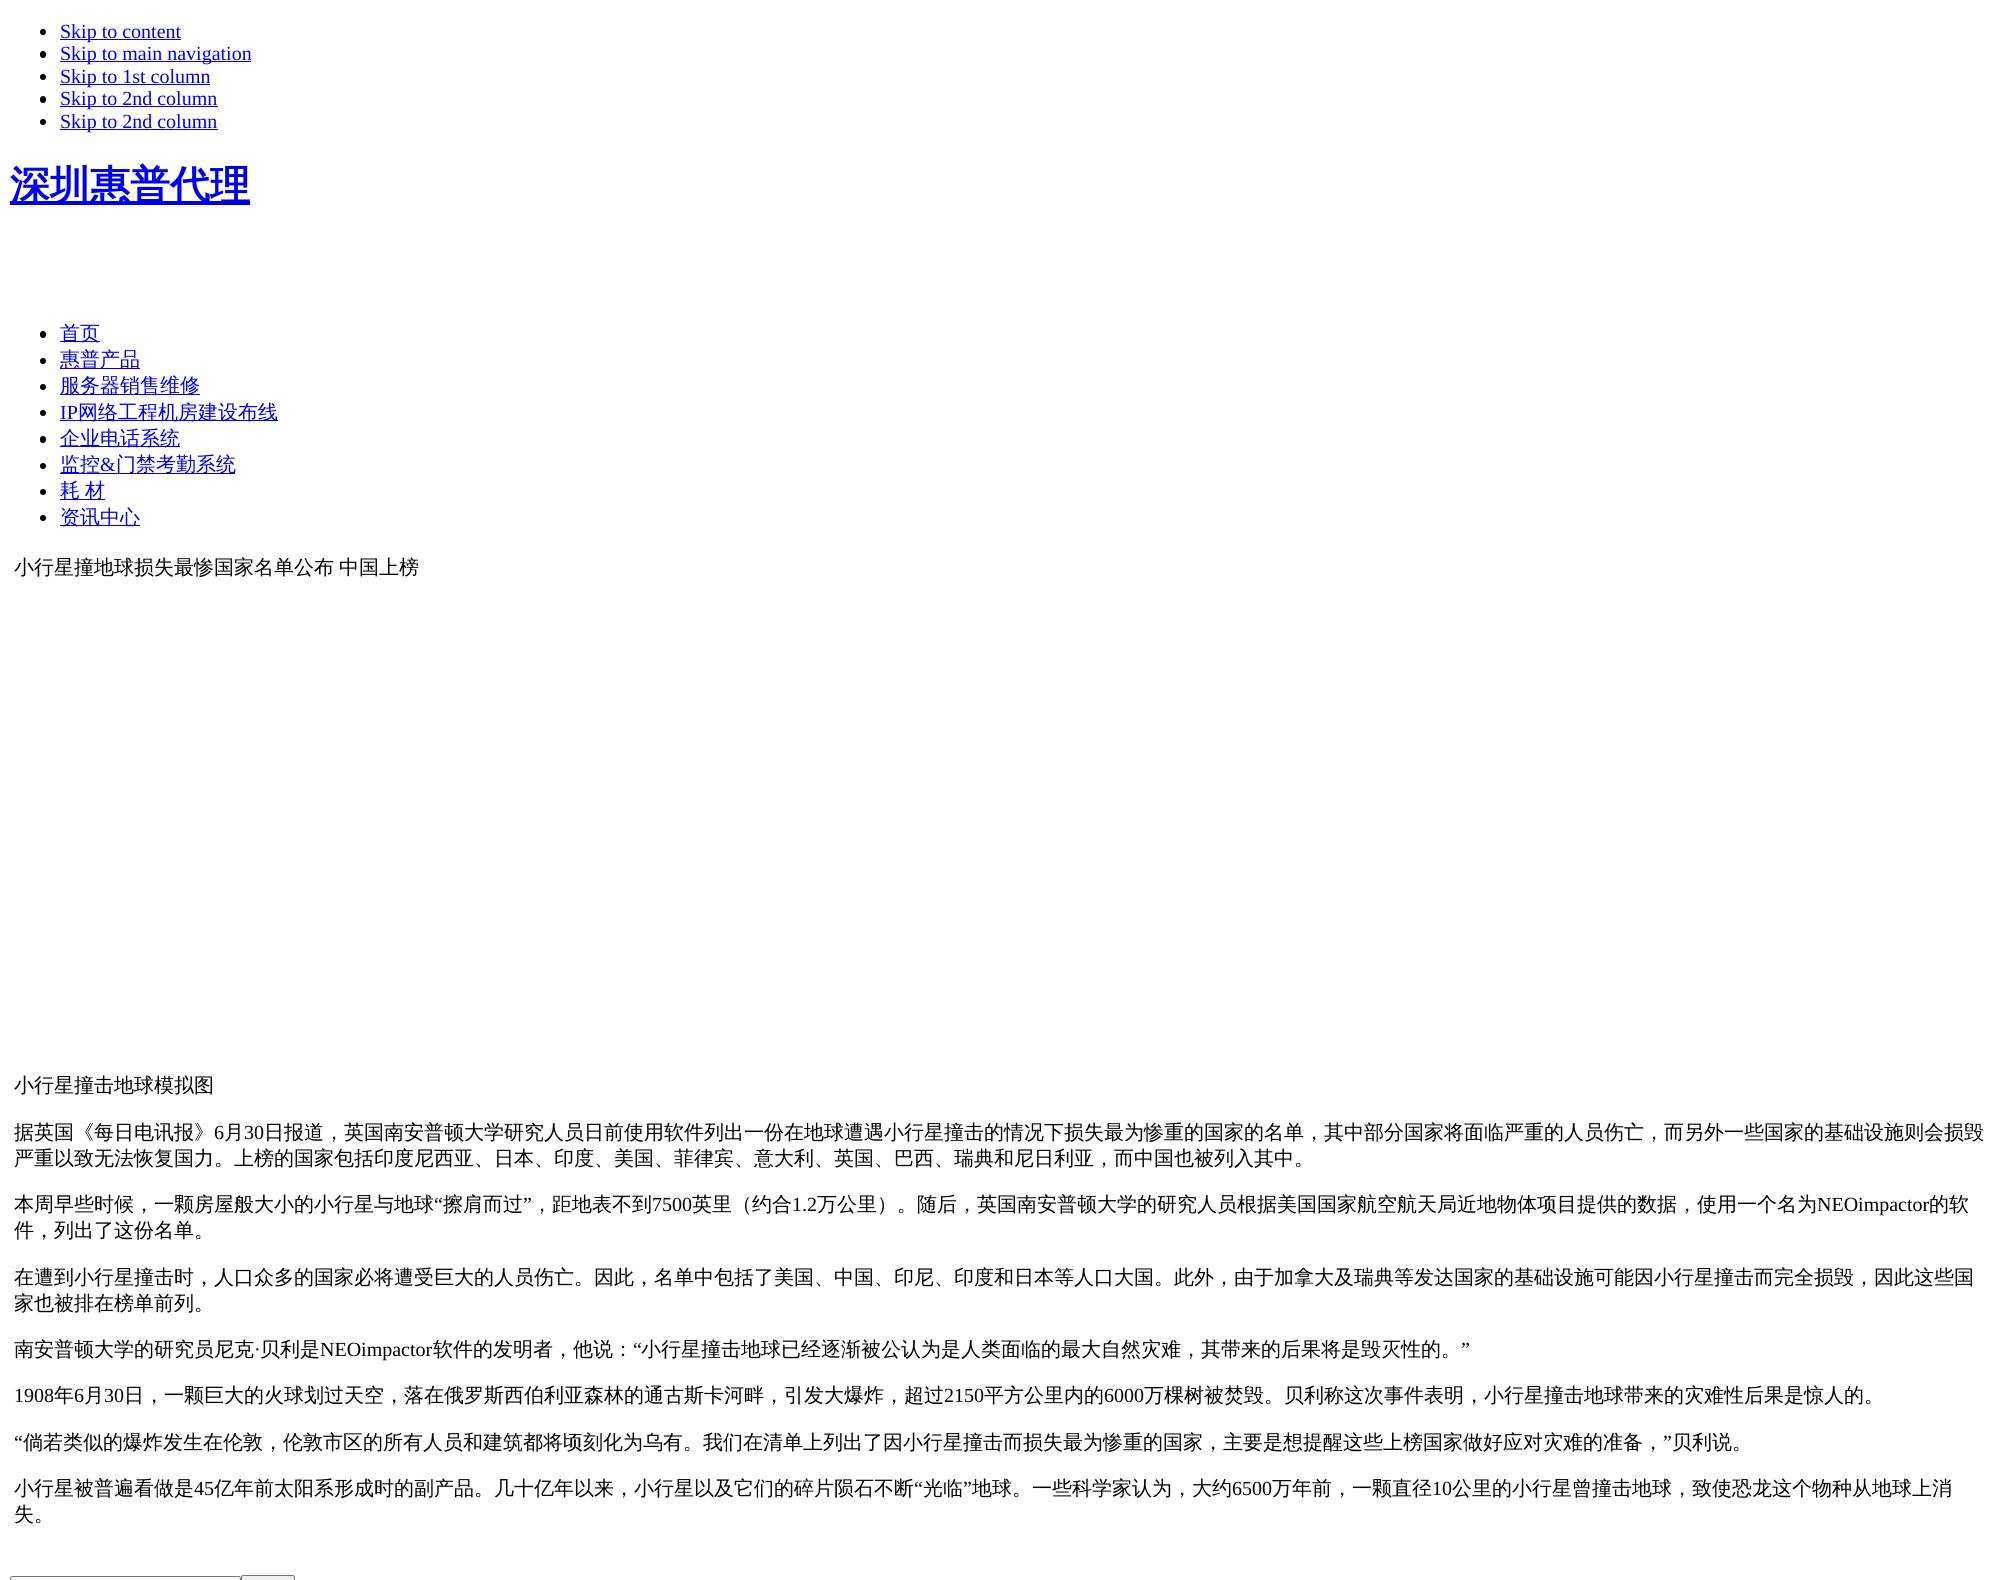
#include <cairo.h>
#include <math.h>
#include <stddef.h>


static void set_color(cairo_t *cr, unsigned color) {
    cairo_set_source_rgb(cr, (color >> 16) / 255.0, (color >> 8 & 255) / 255.0, (color & 255) / 255.0);
}

static void draw_text(cairo_t *cr, double x, double y, const char *s, const char *family, double size, int italic, int bold, unsigned color) {
    cairo_select_font_face(cr, family, italic ? CAIRO_FONT_SLANT_ITALIC : CAIRO_FONT_SLANT_NORMAL,
        bold ? CAIRO_FONT_WEIGHT_BOLD : CAIRO_FONT_WEIGHT_NORMAL);
    cairo_set_font_size(cr, size);
    set_color(cr, color);
    cairo_move_to(cr, x, y);
    cairo_show_text(cr, s);
}

static void draw_spaced(cairo_t *cr, double x, double y, const char *s, double letter, double word) {
    cairo_move_to(cr, x, y);
    while (*s) {
        char ch[5] = {0};
        int n = 0;
        do ch[n++] = *s++; while ((*s & 0xC0) == 0x80);
        cairo_show_text(cr, ch);
        cairo_rel_move_to(cr, letter + word * (*ch == ' '), 0);
    }
}

static void fill_rect(cairo_t *cr, double x, double y, double w, double h, unsigned color) {
    set_color(cr, color);
    cairo_rectangle(cr, x, y, w, h);
    cairo_fill(cr);
}

static void rounded_rect(cairo_t *cr, double x, double y, double w, double h, double r) {
    cairo_new_sub_path(cr);
    cairo_arc(cr, x + w - r, y + h - r, r, 0, M_PI / 2);
    cairo_arc(cr, x + r, y + h - r, r, M_PI / 2, M_PI);
    cairo_arc(cr, x + r, y + r, r, M_PI, 1.5 * M_PI);
    cairo_arc(cr, x + w - r, y + r, r, 1.5 * M_PI, 2 * M_PI);
    cairo_close_path(cr);
}

int main(void) {
    cairo_surface_t *surface = cairo_image_surface_create(CAIRO_FORMAT_RGB24, 2000, 1580);
    cairo_t *cr = cairo_create(surface);
    cairo_font_options_t *options = cairo_font_options_create();
    cairo_font_options_set_hint_metrics(options, CAIRO_HINT_METRICS_OFF);
    cairo_font_options_set_hint_style(options, CAIRO_HINT_STYLE_NONE);
    cairo_set_font_options(cr, options);
    cairo_set_miter_limit(cr, 4);
    set_color(cr, 0xFFFFFF);
    cairo_paint(cr);
    set_color(cr, 0x000000);
    cairo_arc(cr, 43, 32, 3, 0, 2 * M_PI);
    cairo_fill(cr);
    fill_rect(cr, 60, 39, 121, 1, 0x0000EE);
    draw_text(cr, 60, 38, "Skip to content", "Liberation Serif", 20, 0, 0, 0x0000EE);
    set_color(cr, 0x000000);
    rounded_rect(cr, 40, 51, 6, 7, 3);
    cairo_fill(cr);
    fill_rect(cr, 60, 61, 191, 1, 0x0000EE);
    draw_text(cr, 60, 60, "Skip to main navigation", "Liberation Serif", 20, 0, 0, 0x0000EE);
    set_color(cr, 0x000000);
    cairo_new_path(cr);
    cairo_arc(cr, 43, 77, 3, 0, 2 * M_PI);
    cairo_fill(cr);
    fill_rect(cr, 60, 84, 150, 1, 0x0000EE);
    draw_text(cr, 60, 83, "Skip to 1st column", "Liberation Serif", 20, 0, 0, 0x0000EE);
    set_color(cr, 0x000000);
    rounded_rect(cr, 40, 96, 6, 7, 3);
    cairo_fill(cr);
    fill_rect(cr, 60, 106, 158, 1, 0x0000EE);
    draw_text(cr, 60, 105, "Skip to 2nd column", "Liberation Serif", 20, 0, 0, 0x0000EE);
    set_color(cr, 0x000000);
    cairo_new_path(cr);
    cairo_arc(cr, 43, 122, 3, 0, 2 * M_PI);
    cairo_fill(cr);
    fill_rect(cr, 60, 129, 158, 1, 0x0000EE);
    draw_text(cr, 60, 128, "Skip to 2nd column", "Liberation Serif", 20, 0, 0, 0x0000EE);
    fill_rect(cr, 10, 201, 240, 4, 0x0000EE);
    draw_text(cr, 10, 199, "深圳惠普代理", "WenQuanYi Zen Hei", 40, 0, 1, 0x0000EE);
    set_color(cr, 0x000000);
    rounded_rect(cr, 40, 331, 6, 7, 3);
    cairo_fill(cr);
    fill_rect(cr, 60, 341, 40, 1, 0x0000EE);
    draw_text(cr, 60, 340, "首页", "WenQuanYi Zen Hei Medium", 20, 0, 0, 0x0000EE);
    set_color(cr, 0x000000);
    cairo_new_path(cr);
    cairo_arc(cr, 43, 361, 3, 0, 2 * M_PI);
    cairo_fill(cr);
    fill_rect(cr, 60, 368, 80, 1, 0x0000EE);
    draw_text(cr, 60, 366, "惠普产品", "WenQuanYi Zen Hei Medium", 20, 0, 0, 0x0000EE);
    set_color(cr, 0x000000);
    cairo_new_path(cr);
    cairo_arc(cr, 43, 387, 3, 0, 2 * M_PI);
    cairo_fill(cr);
    fill_rect(cr, 60, 394, 140, 1, 0x0000EE);
    draw_text(cr, 60, 392, "服务器销售维修", "WenQuanYi Zen Hei Medium", 20, 0, 0, 0x0000EE);
    set_color(cr, 0x000000);
    cairo_new_path(cr);
    cairo_arc(cr, 43, 413, 3, 0, 2 * M_PI);
    cairo_fill(cr);
    draw_text(cr, 60, 419, "IP", "Liberation Serif", 20, 0, 0, 0x0000EE);
    fill_rect(cr, 60, 420, 218, 1, 0x0000EE);
    draw_text(cr, 78, 419, "网络工程机房建设布线", "WenQuanYi Zen Hei Medium", 20, 0, 0, 0x0000EE);
    set_color(cr, 0x000000);
    rounded_rect(cr, 40, 436, 6, 7, 3);
    cairo_fill(cr);
    fill_rect(cr, 60, 446, 120, 1, 0x0000EE);
    draw_text(cr, 60, 445, "企业电话系统", "WenQuanYi Zen Hei Medium", 20, 0, 0, 0x0000EE);
    set_color(cr, 0x000000);
    cairo_new_path(cr);
    cairo_arc(cr, 43, 466, 3, 0, 2 * M_PI);
    cairo_fill(cr);
    fill_rect(cr, 60, 473, 175, 1, 0x0000EE);
    draw_text(cr, 60, 471, "监控", "WenQuanYi Zen Hei Medium", 20, 0, 0, 0x0000EE);
    draw_text(cr, 100, 471, "&", "Liberation Serif", 20, 0, 0, 0x0000EE);
    draw_text(cr, 116, 471, "门禁考勤系统", "WenQuanYi Zen Hei Medium", 20, 0, 0, 0x0000EE);
    set_color(cr, 0x000000);
    cairo_new_path(cr);
    cairo_arc(cr, 43, 492, 3, 0, 2 * M_PI);
    cairo_fill(cr);
    fill_rect(cr, 60, 499, 45, 1, 0x0000EE);
    draw_spaced(cr, 60, 497, "耗 材", 0, -1);
    set_color(cr, 0x000000);
    cairo_new_path(cr);
    cairo_arc(cr, 43, 518, 3, 0, 2 * M_PI);
    cairo_fill(cr);
    fill_rect(cr, 60, 525, 80, 1, 0x0000EE);
    draw_text(cr, 60, 524, "资讯中心", "WenQuanYi Zen Hei Medium", 20, 0, 0, 0x0000EE);
    set_color(cr, 0x000000);
    draw_spaced(cr, 14, 574, "小行星撞地球损失最惨国家名单公布 中国上榜", 0, -1);
    draw_text(cr, 14, 1092, "小行星撞击地球模拟图", "WenQuanYi Zen Hei Medium", 20, 0, 0, 0x000000);
    draw_text(cr, 14, 1139, "据英国《每日电讯报》", "WenQuanYi Zen Hei Medium", 20, 0, 0, 0x000000);
    draw_text(cr, 214, 1139, "6", "Liberation Serif", 20, 0, 0, 0x000000);
    draw_text(cr, 224, 1139, "月", "WenQuanYi Zen Hei Medium", 20, 0, 0, 0x000000);
    draw_text(cr, 244, 1139, "30", "Liberation Serif", 20, 0, 0, 0x000000);
    draw_text(cr, 264, 1139, "日报道，英国南安普顿大学研究人员日前使用软件列出一份在地球遭遇小行星撞击的情况下损失最为惨重的国家的名单，其中部分国家将面临严重的人员伤亡，而另外一些国家的基础设施则会损毁", "WenQuanYi Zen Hei Medium", 20, 0, 0, 0x000000);
    draw_text(cr, 14, 1165, "严重以致无法恢复国力。上榜的国家包括印度尼西亚、日本、印度、美国、菲律宾、意大利、英国、巴西、瑞典和尼日利亚，而中国也被列入其中。", "WenQuanYi Zen Hei Medium", 20, 0, 0, 0x000000);
    draw_text(cr, 14, 1211, "本周早些时候，一颗房屋般大小的小行星与地球", "WenQuanYi Zen Hei Medium", 20, 0, 0, 0x000000);
    draw_text(cr, 434, 1211, "“", "Liberation Serif", 20, 0, 0, 0x000000);
    draw_text(cr, 443, 1211, "擦肩而过", "WenQuanYi Zen Hei Medium", 20, 0, 0, 0x000000);
    draw_text(cr, 523, 1211, "”", "Liberation Serif", 20, 0, 0, 0x000000);
    draw_text(cr, 532, 1211, "，距地表不到", "WenQuanYi Zen Hei Medium", 20, 0, 0, 0x000000);
    draw_text(cr, 652, 1211, "7500", "Liberation Serif", 20, 0, 0, 0x000000);
    draw_text(cr, 692, 1211, "英里（约合", "WenQuanYi Zen Hei Medium", 20, 0, 0, 0x000000);
    draw_text(cr, 792, 1211, "1.2", "Liberation Serif", 20, 0, 0, 0x000000);
    draw_text(cr, 817, 1211, "万公里）。随后，英国南安普顿大学的研究人员根据美国国家航空航天局近地物体项目提供的数据，使用一个名为", "WenQuanYi Zen Hei Medium", 20, 0, 0, 0x000000);
    draw_text(cr, 1817, 1211, "NEOimpactor", "Liberation Serif", 20, 0, 0, 0x000000);
    draw_text(cr, 1929, 1211, "的软", "WenQuanYi Zen Hei Medium", 20, 0, 0, 0x000000);
    draw_text(cr, 14, 1237, "件，列出了这份名单。", "WenQuanYi Zen Hei Medium", 20, 0, 0, 0x000000);
    draw_text(cr, 14, 1284, "在遭到小行星撞击时，人口众多的国家必将遭受巨大的人员伤亡。因此，名单中包括了美国、中国、印尼、印度和日本等人口大国。此外，由于加拿大及瑞典等发达国家的基础设施可能因小行星撞击而完全损毁，因此这些国", "WenQuanYi Zen Hei Medium", 20, 0, 0, 0x000000);
    draw_text(cr, 14, 1310, "家也被排在榜单前列。", "WenQuanYi Zen Hei Medium", 20, 0, 0, 0x000000);
    draw_text(cr, 14, 1356, "南安普顿大学的研究员尼克", "WenQuanYi Zen Hei Medium", 20, 0, 0, 0x000000);
    draw_text(cr, 260, 1356, "贝利是", "WenQuanYi Zen Hei Medium", 20, 0, 0, 0x000000);
    draw_text(cr, 320, 1356, "NEOimpactor", "Liberation Serif", 20, 0, 0, 0x000000);
    draw_text(cr, 433, 1356, "软件的发明者，他说：", "WenQuanYi Zen Hei Medium", 20, 0, 0, 0x000000);
    draw_text(cr, 633, 1356, "“", "Liberation Serif", 20, 0, 0, 0x000000);
    draw_text(cr, 641, 1356, "小行星撞击地球已经逐渐被公认为是人类面临的最大自然灾难，其带来的后果将是毁灭性的。", "WenQuanYi Zen Hei Medium", 20, 0, 0, 0x000000);
    draw_text(cr, 1461, 1356, "”", "Liberation Serif", 20, 0, 0, 0x000000);
    draw_text(cr, 254, 1356, "·", "Liberation Serif", 20, 0, 0, 0x000000);
    draw_text(cr, 14, 1402, "1908", "Liberation Serif", 20, 0, 0, 0x000000);
    draw_text(cr, 54, 1402, "年", "WenQuanYi Zen Hei Medium", 20, 0, 0, 0x000000);
    draw_text(cr, 74, 1402, "6", "Liberation Serif", 20, 0, 0, 0x000000);
    draw_text(cr, 84, 1402, "月", "WenQuanYi Zen Hei Medium", 20, 0, 0, 0x000000);
    draw_text(cr, 104, 1402, "30", "Liberation Serif", 20, 0, 0, 0x000000);
    draw_text(cr, 124, 1402, "日，一颗巨大的火球划过天空，落在俄罗斯西伯利亚森林的通古斯卡河畔，引发大爆炸，超过", "WenQuanYi Zen Hei Medium", 20, 0, 0, 0x000000);
    draw_text(cr, 944, 1402, "2150", "Liberation Serif", 20, 0, 0, 0x000000);
    draw_text(cr, 984, 1402, "平方公里内的", "WenQuanYi Zen Hei Medium", 20, 0, 0, 0x000000);
    draw_text(cr, 1104, 1402, "6000", "Liberation Serif", 20, 0, 0, 0x000000);
    draw_text(cr, 1144, 1402, "万棵树被焚毁。贝利称这次事件表明，小行星撞击地球带来的灾难性后果是惊人的。", "WenQuanYi Zen Hei Medium", 20, 0, 0, 0x000000);
    draw_text(cr, 14, 1449, "“", "Liberation Serif", 20, 0, 0, 0x000000);
    draw_text(cr, 23, 1449, "倘若类似的爆炸发生在伦敦，伦敦市区的所有人员和建筑都将顷刻化为乌有。我们在清单上列出了因小行星撞击而损失最为惨重的国家，主要是想提醒这些上榜国家做好应对灾难的准备，", "WenQuanYi Zen Hei Medium", 20, 0, 0, 0x000000);
    draw_text(cr, 1663, 1449, "”", "Liberation Serif", 20, 0, 0, 0x000000);
    draw_text(cr, 1672, 1449, "贝利说。", "WenQuanYi Zen Hei Medium", 20, 0, 0, 0x000000);
    draw_text(cr, 14, 1495, "小行星被普遍看做是", "WenQuanYi Zen Hei Medium", 20, 0, 0, 0x000000);
    draw_text(cr, 194, 1495, "45", "Liberation Serif", 20, 0, 0, 0x000000);
    draw_text(cr, 214, 1495, "亿年前太阳系形成时的副产品。几十亿年以来，小行星以及它们的碎片陨石不断", "WenQuanYi Zen Hei Medium", 20, 0, 0, 0x000000);
    draw_text(cr, 914, 1495, "“", "Liberation Serif", 20, 0, 0, 0x000000);
    draw_text(cr, 923, 1495, "光临", "WenQuanYi Zen Hei Medium", 20, 0, 0, 0x000000);
    draw_text(cr, 963, 1495, "”", "Liberation Serif", 20, 0, 0, 0x000000);
    draw_text(cr, 972, 1495, "地球。一些科学家认为，大约", "WenQuanYi Zen Hei Medium", 20, 0, 0, 0x000000);
    draw_text(cr, 1232, 1495, "6500", "Liberation Serif", 20, 0, 0, 0x000000);
    draw_text(cr, 1272, 1495, "万年前，一颗直径", "WenQuanYi Zen Hei Medium", 20, 0, 0, 0x000000);
    draw_text(cr, 1432, 1495, "10", "Liberation Serif", 20, 0, 0, 0x000000);
    draw_text(cr, 1452, 1495, "公里的小行星曾撞击地球，致使恐龙这个物种从地球上消", "WenQuanYi Zen Hei Medium", 20, 0, 0, 0x000000);
    draw_text(cr, 14, 1521, "失。", "WenQuanYi Zen Hei Medium", 20, 0, 0, 0x000000);
    rounded_rect(cr, 10.5, 1576.5, 230, 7, 2);
    set_color(cr, 0x767676);
    cairo_set_line_width(cr, 1);
    cairo_stroke(cr);
    set_color(cr, 0xEFEFEF);
    rounded_rect(cr, 241.5, 1575.5, 53, 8, 2);
    cairo_fill_preserve(cr);
    set_color(cr, 0x767676);
    cairo_stroke(cr);
    cairo_surface_write_to_png(surface, "output.png");
    cairo_font_options_destroy(options);
    cairo_destroy(cr);
    cairo_surface_destroy(surface);
    return 0;
}
